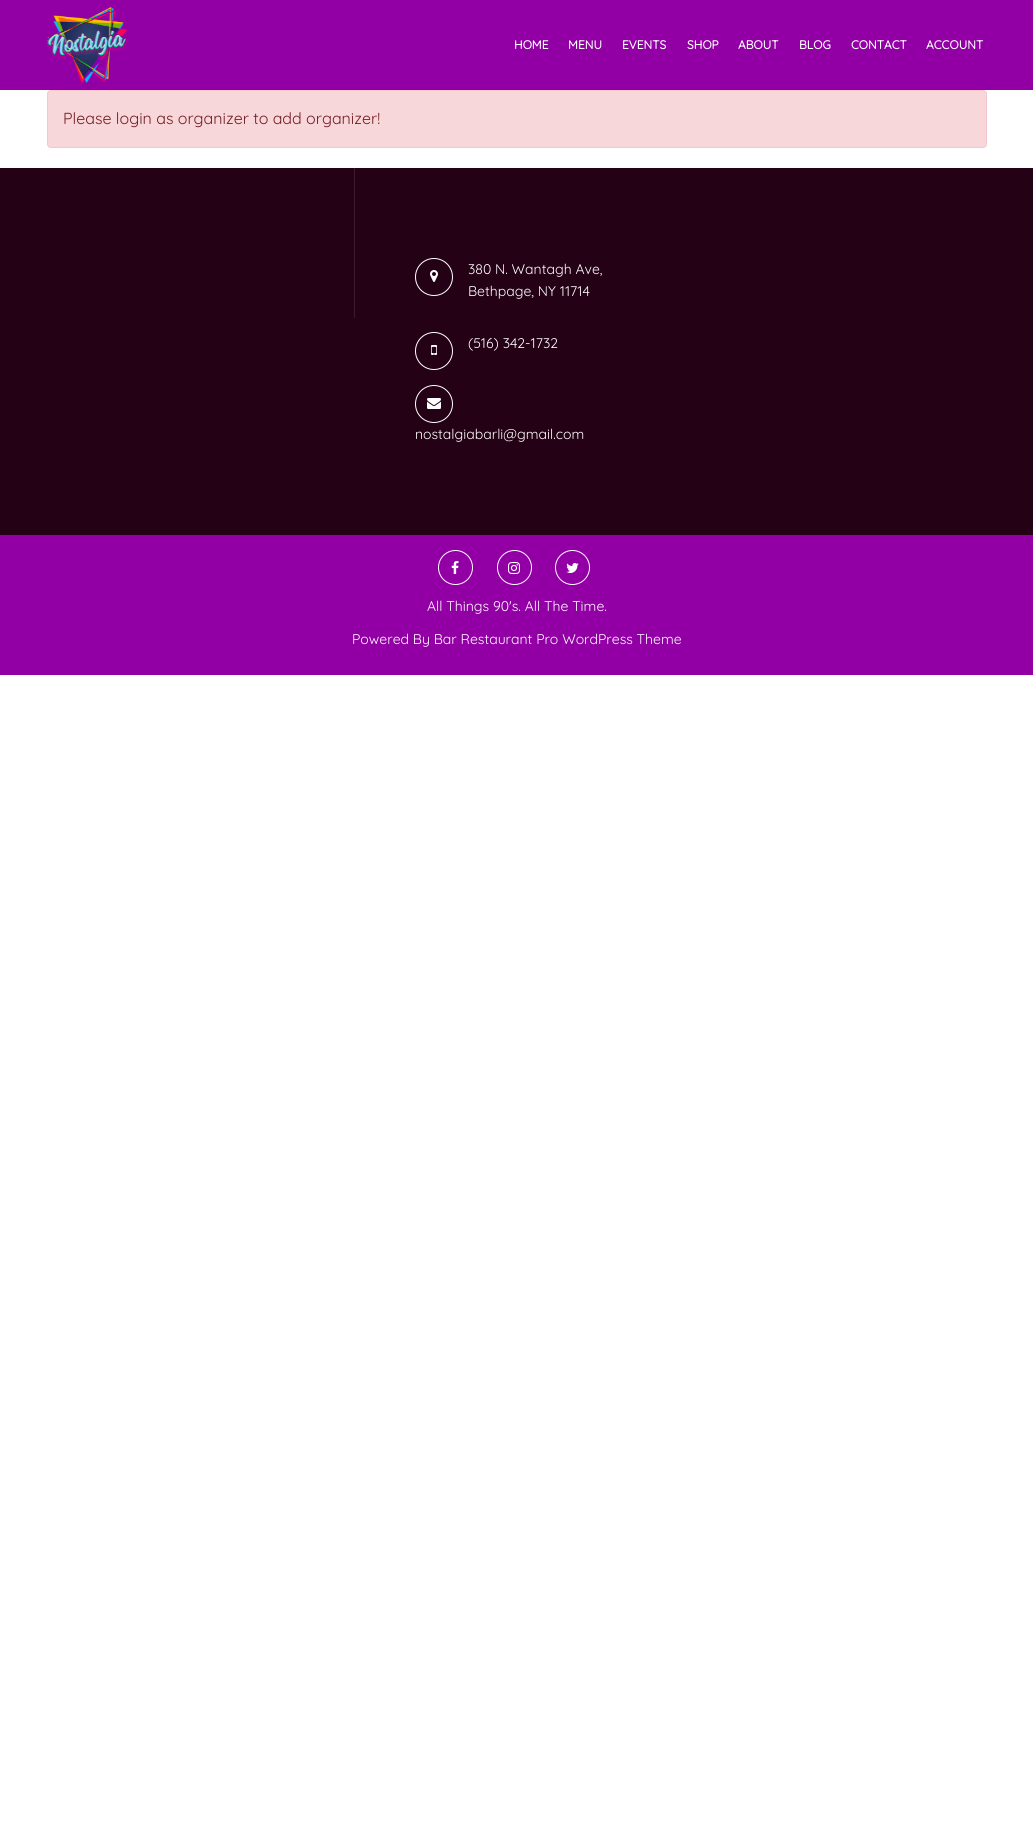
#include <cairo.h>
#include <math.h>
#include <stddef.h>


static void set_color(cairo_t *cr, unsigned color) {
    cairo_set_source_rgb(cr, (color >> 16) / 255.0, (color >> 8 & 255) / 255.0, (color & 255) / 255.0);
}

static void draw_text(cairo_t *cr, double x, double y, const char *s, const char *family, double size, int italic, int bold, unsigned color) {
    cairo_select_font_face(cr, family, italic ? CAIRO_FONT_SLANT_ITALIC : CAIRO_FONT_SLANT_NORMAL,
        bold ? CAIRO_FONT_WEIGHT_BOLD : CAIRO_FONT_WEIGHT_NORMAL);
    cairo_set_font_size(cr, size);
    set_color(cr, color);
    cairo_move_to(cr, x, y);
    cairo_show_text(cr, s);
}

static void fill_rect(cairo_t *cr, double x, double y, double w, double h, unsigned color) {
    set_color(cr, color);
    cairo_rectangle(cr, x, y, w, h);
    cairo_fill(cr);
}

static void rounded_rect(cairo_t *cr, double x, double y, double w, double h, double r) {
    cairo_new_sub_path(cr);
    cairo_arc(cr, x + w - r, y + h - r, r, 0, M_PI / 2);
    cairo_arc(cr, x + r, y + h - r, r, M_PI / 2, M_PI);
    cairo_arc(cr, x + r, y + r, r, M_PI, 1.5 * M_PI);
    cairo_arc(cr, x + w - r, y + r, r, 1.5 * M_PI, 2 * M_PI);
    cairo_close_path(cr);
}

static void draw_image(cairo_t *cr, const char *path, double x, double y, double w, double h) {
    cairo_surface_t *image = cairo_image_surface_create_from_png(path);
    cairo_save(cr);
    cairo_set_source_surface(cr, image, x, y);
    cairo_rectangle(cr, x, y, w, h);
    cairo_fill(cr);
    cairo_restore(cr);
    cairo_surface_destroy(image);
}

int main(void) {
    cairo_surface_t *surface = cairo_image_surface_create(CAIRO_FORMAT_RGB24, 1033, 1839);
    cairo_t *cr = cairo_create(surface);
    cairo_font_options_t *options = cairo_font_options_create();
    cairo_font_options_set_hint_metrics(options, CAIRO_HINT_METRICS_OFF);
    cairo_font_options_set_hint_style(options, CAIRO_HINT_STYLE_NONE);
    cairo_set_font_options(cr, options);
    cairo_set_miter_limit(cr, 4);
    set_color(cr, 0xFFFFFF);
    cairo_paint(cr);
    fill_rect(cr, 0, 0, 1033, 90, 0x9200A5);
    draw_image(cr, "assets/img1.png", 46, 7, 81, 76);
    draw_text(cr, 514, 49, "HOME", "Quicksand", 12, 0, 1, 0xFFFFFF);
    draw_text(cr, 568, 49, "MENU", "Quicksand", 12, 0, 1, 0xFFFFFF);
    draw_text(cr, 622, 49, "EVENTS", "Quicksand", 12, 0, 1, 0xFFFFFF);
    draw_text(cr, 687, 49, "SHOP", "Quicksand", 12, 0, 1, 0xFFFFFF);
    draw_text(cr, 738, 49, "ABOUT", "Quicksand", 12, 0, 1, 0xFFFFFF);
    draw_text(cr, 799, 49, "BLOG", "Quicksand", 12, 0, 1, 0xFFFFFF);
    draw_text(cr, 851, 49, "CONTACT", "Quicksand", 12, 0, 1, 0xFFFFFF);
    draw_text(cr, 926, 49, "ACCOUNT", "Quicksand", 12, 0, 1, 0xFFFFFF);
    set_color(cr, 0xF8D7DA);
    rounded_rect(cr, 47.5, 90.5, 939, 57, 3.5);
    cairo_fill_preserve(cr);
    set_color(cr, 0xF5C6CB);
    cairo_set_line_width(cr, 1);
    cairo_stroke(cr);
    draw_text(cr, 63, 124, "Please login as organizer to add organizer!", "Quicksand Light", 16, 0, 0, 0x721C24);
    fill_rect(cr, 0, 168, 1033, 367, 0x240115);
    fill_rect(cr, 354, 168, 1, 150, 0x3A1A2C);
    cairo_new_path(cr);
    cairo_arc(cr, 434, 277, 18.5, 0, 2 * M_PI);
    set_color(cr, 0xFFFFFF);
    cairo_stroke(cr);
    draw_image(cr, "assets/img2.png", 430, 270, 8, 12);
    draw_text(cr, 468, 274, "380 N. Wantagh Ave,", "Quicksand Light", 14, 0, 0, 0xFFFFFF);
    draw_text(cr, 468, 296, "Bethpage, NY 11714", "Quicksand Light", 14, 0, 0, 0xFFFFFF);
    cairo_new_path(cr);
    cairo_arc(cr, 434, 351, 18.5, 0, 2 * M_PI);
    cairo_stroke(cr);
    draw_image(cr, "assets/img3.png", 431, 345, 6, 10);
    draw_text(cr, 468, 348, "(516) 342-1732", "Quicksand Light", 14, 0, 0, 0xFFFFFF);
    cairo_new_path(cr);
    cairo_arc(cr, 434, 404, 18.5, 0, 2 * M_PI);
    cairo_stroke(cr);
    draw_image(cr, "assets/img4.png", 427, 398, 14, 11);
    draw_text(cr, 415, 439, "nostalgiabarli@gmail.com", "Quicksand Light", 14, 0, 0, 0xFFFFFF);
    fill_rect(cr, 0, 535, 1033, 140, 0x9200A5);
    cairo_new_path(cr);
    cairo_arc(cr, 455.5, 567.5, 17, 0, 2 * M_PI);
    set_color(cr, 0xFFFFFF);
    cairo_stroke(cr);
    draw_image(cr, "assets/img5.png", 451, 561, 8, 13);
    cairo_arc(cr, 514.5, 567.5, 17, 0, 2 * M_PI);
    cairo_stroke(cr);
    draw_image(cr, "assets/img6.png", 508, 562, 12, 12);
    cairo_arc(cr, 572.5, 567.5, 17, 0, 2 * M_PI);
    cairo_stroke(cr);
    draw_image(cr, "assets/img7.png", 566, 563, 13, 10);
    draw_text(cr, 427, 611, "All Things 90's. All The Time.", "Quicksand Light", 14, 0, 0, 0xFFFFFF);
    draw_text(cr, 352, 644, "Powered By Bar Restaurant Pro WordPress Theme", "Quicksand Light", 14, 0, 0, 0xFFFFFF);
    cairo_surface_write_to_png(surface, "output.png");
    cairo_font_options_destroy(options);
    cairo_destroy(cr);
    cairo_surface_destroy(surface);
    return 0;
}
